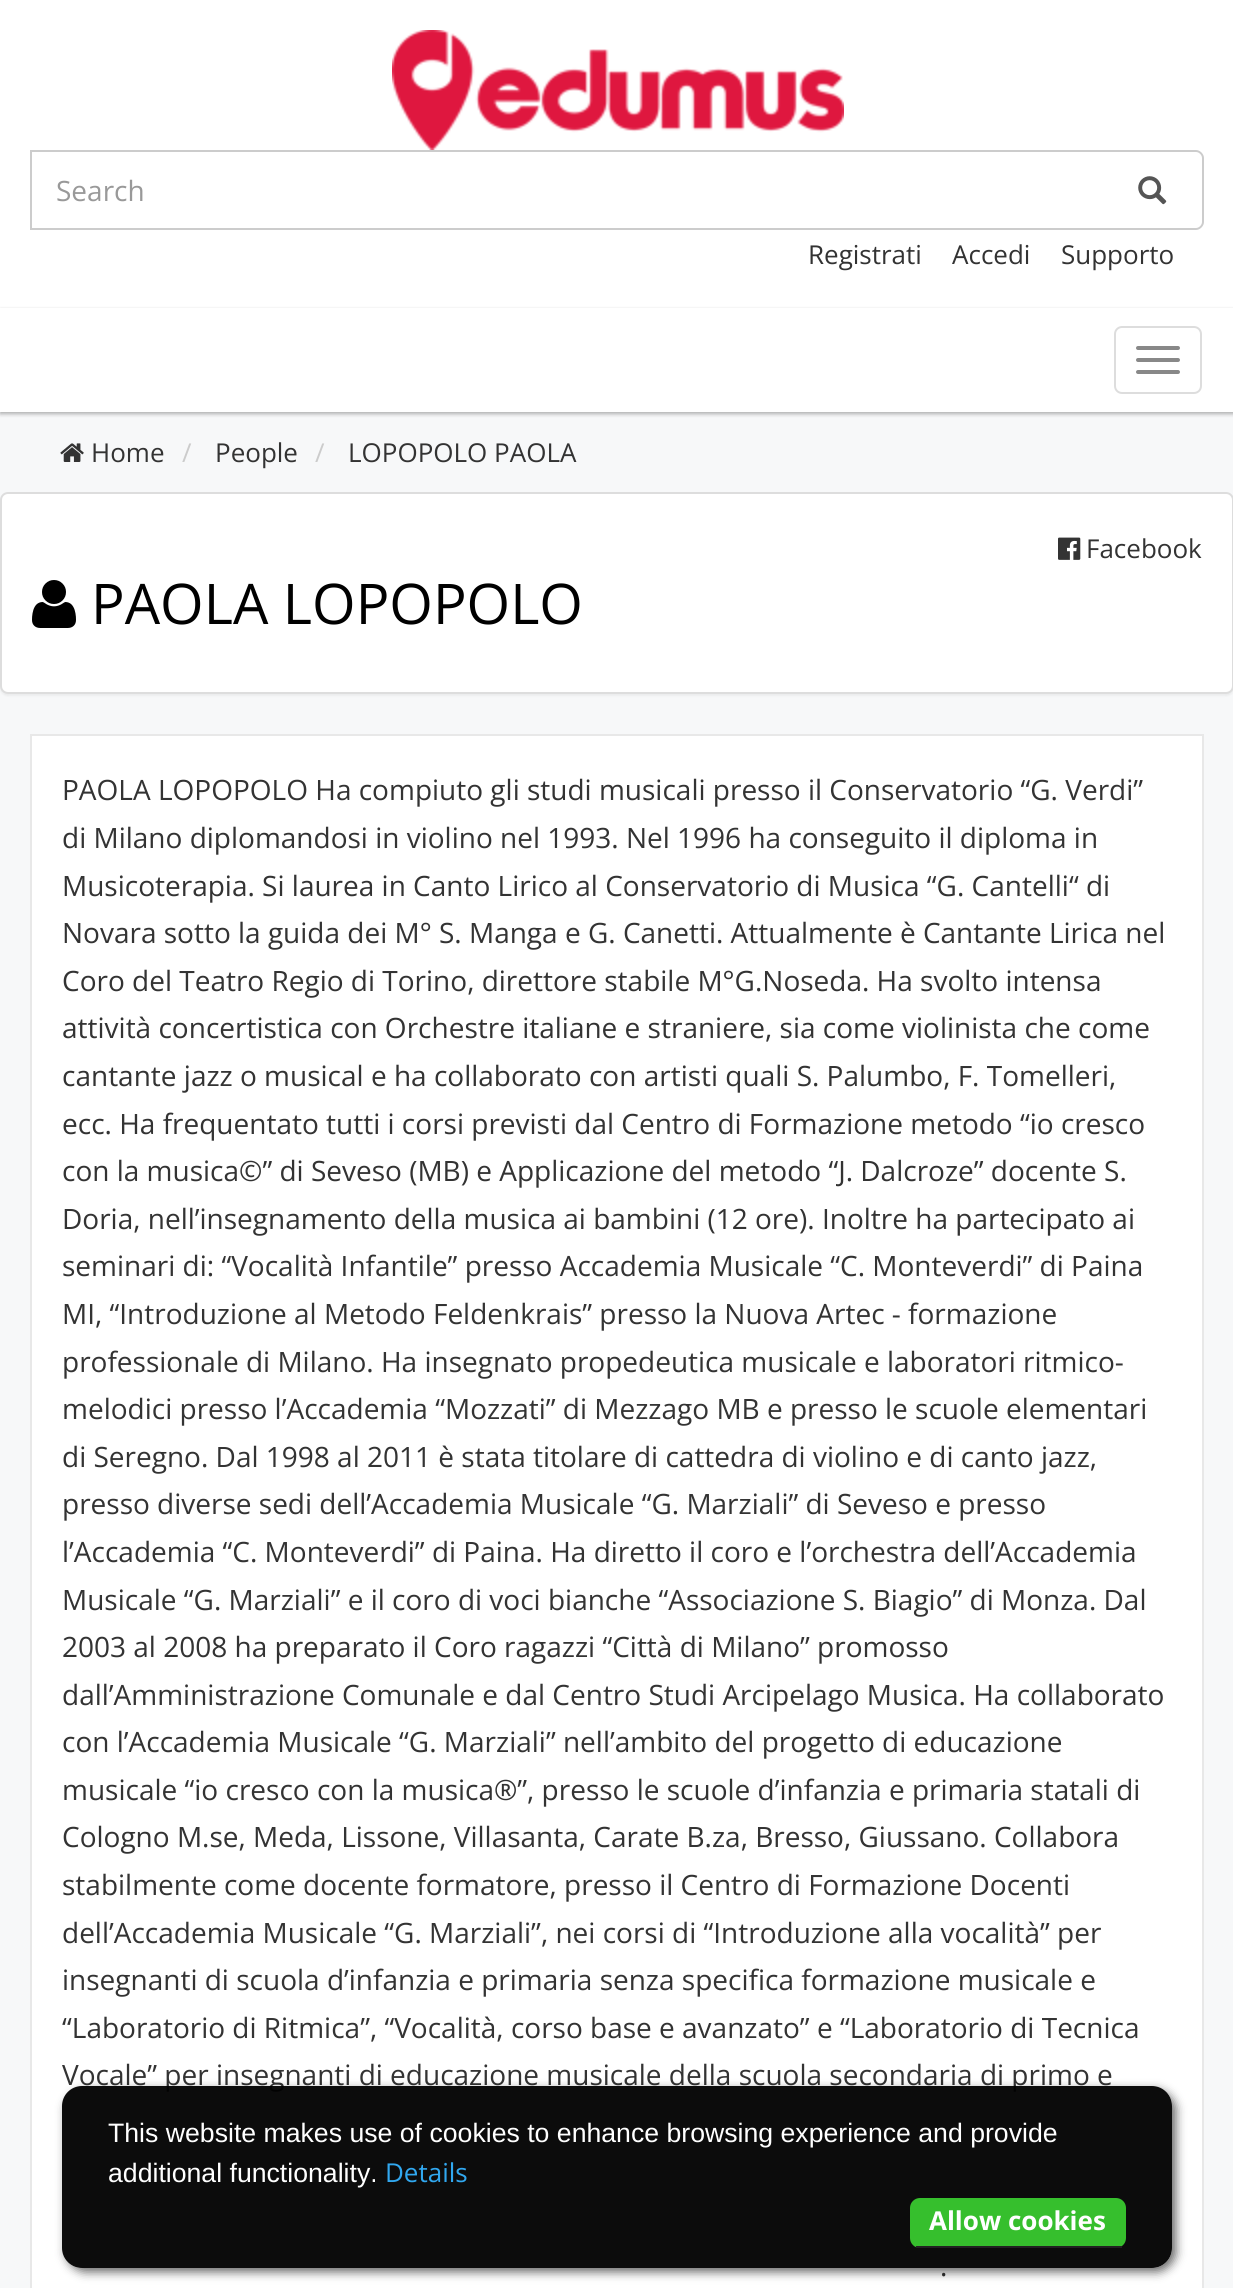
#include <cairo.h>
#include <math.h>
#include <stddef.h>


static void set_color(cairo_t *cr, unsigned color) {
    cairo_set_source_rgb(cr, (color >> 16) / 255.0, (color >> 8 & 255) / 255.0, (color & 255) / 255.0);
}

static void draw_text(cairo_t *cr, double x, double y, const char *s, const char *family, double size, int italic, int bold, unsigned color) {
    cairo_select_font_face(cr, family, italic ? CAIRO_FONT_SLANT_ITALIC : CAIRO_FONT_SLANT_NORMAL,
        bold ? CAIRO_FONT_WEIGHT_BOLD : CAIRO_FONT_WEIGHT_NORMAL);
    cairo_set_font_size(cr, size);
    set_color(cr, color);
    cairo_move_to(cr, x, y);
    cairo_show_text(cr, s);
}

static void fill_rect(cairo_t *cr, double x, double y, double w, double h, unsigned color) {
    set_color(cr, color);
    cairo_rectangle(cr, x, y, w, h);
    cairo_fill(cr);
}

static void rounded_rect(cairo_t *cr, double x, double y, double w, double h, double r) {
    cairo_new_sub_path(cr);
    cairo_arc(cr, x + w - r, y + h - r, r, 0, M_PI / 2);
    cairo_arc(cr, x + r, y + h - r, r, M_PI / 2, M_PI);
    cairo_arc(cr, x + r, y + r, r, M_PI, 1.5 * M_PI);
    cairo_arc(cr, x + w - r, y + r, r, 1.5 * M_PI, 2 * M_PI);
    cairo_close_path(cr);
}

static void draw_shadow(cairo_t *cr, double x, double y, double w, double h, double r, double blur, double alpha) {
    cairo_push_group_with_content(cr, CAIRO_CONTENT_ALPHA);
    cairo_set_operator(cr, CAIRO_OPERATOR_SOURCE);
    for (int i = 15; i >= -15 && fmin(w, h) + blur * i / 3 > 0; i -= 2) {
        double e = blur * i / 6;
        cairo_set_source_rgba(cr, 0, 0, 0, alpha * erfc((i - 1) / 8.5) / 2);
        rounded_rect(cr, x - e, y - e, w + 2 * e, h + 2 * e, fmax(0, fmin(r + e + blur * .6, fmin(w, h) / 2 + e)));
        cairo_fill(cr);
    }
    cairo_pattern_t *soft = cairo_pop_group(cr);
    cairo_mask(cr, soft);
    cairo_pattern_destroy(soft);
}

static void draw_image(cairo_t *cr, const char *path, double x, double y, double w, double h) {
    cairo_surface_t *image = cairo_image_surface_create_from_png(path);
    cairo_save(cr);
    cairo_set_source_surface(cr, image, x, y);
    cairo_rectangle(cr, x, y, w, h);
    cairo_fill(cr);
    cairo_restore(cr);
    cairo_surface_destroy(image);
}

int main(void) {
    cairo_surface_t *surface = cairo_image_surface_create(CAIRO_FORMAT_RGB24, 1233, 2288);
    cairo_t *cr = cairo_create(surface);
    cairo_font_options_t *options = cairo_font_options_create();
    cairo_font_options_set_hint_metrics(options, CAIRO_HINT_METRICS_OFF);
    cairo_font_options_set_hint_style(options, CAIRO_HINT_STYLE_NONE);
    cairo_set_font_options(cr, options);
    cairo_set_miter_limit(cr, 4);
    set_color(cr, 0xF7F8F9);
    cairo_paint(cr);
    fill_rect(cr, 0, 0, 1233, 308, 0xFFFFFF);
    draw_image(cr, "assets/img1.png", 392, 30, 452, 120);
    fill_rect(cr, 30, 150, 1072, 2, 0xCCCCCC);
    fill_rect(cr, 30, 228, 1072, 2, 0xCCCCCC);
    fill_rect(cr, 30, 150, 2, 80, 0xCCCCCC);
    draw_text(cr, 56, 201, "Search", "Open Sans", 28, 0, 0, 0x999999);
    set_color(cr, 0xCCCCCC);
    cairo_set_fill_rule(cr, CAIRO_FILL_RULE_EVEN_ODD);
    cairo_new_path(cr);
    cairo_move_to(cr, 1102, 150);
    cairo_line_to(cr, 1196, 150);
    cairo_curve_to(cr, 1200, 150, 1204, 154, 1204, 158);
    cairo_line_to(cr, 1204, 222);
    cairo_curve_to(cr, 1204, 226, 1200, 230, 1196, 230);
    cairo_line_to(cr, 1102, 230);
    cairo_close_path(cr);
    cairo_move_to(cr, 1102, 152);
    cairo_line_to(cr, 1196, 152);
    cairo_curve_to(cr, 1199, 152, 1202, 155, 1202, 158);
    cairo_line_to(cr, 1202, 222);
    cairo_curve_to(cr, 1202, 225, 1199, 228, 1196, 228);
    cairo_line_to(cr, 1102, 228);
    cairo_close_path(cr);
    cairo_fill(cr);
    draw_image(cr, "assets/img2.png", 1138, 176, 29, 29);
    draw_text(cr, 808, 264, "Registrati", "Open Sans", 26, 0, 0, 0x333333);
    draw_text(cr, 952, 264, "Accedi", "Open Sans", 26, 0, 0, 0x333333);
    draw_text(cr, 1061, 264, "Supporto", "Open Sans", 26, 0, 0, 0x333333);
    set_color(cr, 0x000000);
    draw_shadow(cr, 0, 310, 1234, 104, 0, 2, 0.3);
    fill_rect(cr, 0, 308, 1233, 104, 0xFFFFFF);
    rounded_rect(cr, 1115, 327, 86, 66, 7);
    set_color(cr, 0xDDDDDD);
    cairo_stroke(cr);
    set_color(cr, 0x888888);
    rounded_rect(cr, 1136, 346, 44, 4, 2);
    cairo_fill(cr);
    rounded_rect(cr, 1136, 358, 44, 4, 2);
    cairo_fill(cr);
    rounded_rect(cr, 1136, 370, 44, 4, 2);
    cairo_fill(cr);
    draw_image(cr, "assets/img3.png", 60, 443, 24, 19);
    draw_text(cr, 91, 462, "Home", "Open Sans", 26, 0, 0, 0x333333);
    draw_text(cr, 182, 462, "/", "Open Sans", 26, 0, 0, 0xCCCCCC);
    draw_text(cr, 215, 462, "People", "Open Sans", 26, 0, 0, 0x333333);
    draw_text(cr, 315, 462, "/", "Open Sans", 26, 0, 0, 0xCCCCCC);
    draw_text(cr, 348, 462, "LOPOPOLO PAOLA", "Open Sans", 26, 0, 0, 0x333333);
    set_color(cr, 0x000000);
    draw_shadow(cr, 0, 494, 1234, 202, 8, 1, 0.05);
    set_color(cr, 0xFFFFFF);
    rounded_rect(cr, 1, 493, 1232, 200, 7);
    cairo_fill_preserve(cr);
    set_color(cr, 0xDDDDDD);
    cairo_stroke(cr);
    draw_image(cr, "assets/img4.png", 1058, 537, 23, 23);
    draw_text(cr, 1086, 558, "Facebook", "Open Sans", 26, 0, 0, 0x333333);
    draw_image(cr, "assets/img5.png", 32, 580, 44, 48);
    draw_text(cr, 91, 624, "PAOLA LOPOPOLO", "Open Sans", 56, 0, 0, 0x000000);
    set_color(cr, 0xFFFFFF);
    cairo_rectangle(cr, 31, 735, 1172, 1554);
    cairo_fill_preserve(cr);
    set_color(cr, 0xE8E8E8);
    cairo_stroke(cr);
    draw_text(cr, 62, 800, "PAOLA LOPOPOLO Ha compiuto gli studi musicali presso il Conservatorio “G. Verdi”", "Open Sans", 28, 0, 0, 0x333333);
    draw_text(cr, 62, 848, "di Milano diplomandosi in violino nel 1993. Nel 1996 ha conseguito il diploma in", "Open Sans", 28, 0, 0, 0x333333);
    draw_text(cr, 62, 896, "Musicoterapia. Si laurea in Canto Lirico al Conservatorio di Musica “G. Cantelli“ di", "Open Sans", 28, 0, 0, 0x333333);
    draw_text(cr, 62, 943, "Novara sotto la guida dei M° S. Manga e G. Canetti. Attualmente è Cantante Lirica nel", "Open Sans", 28, 0, 0, 0x333333);
    draw_text(cr, 62, 991, "Coro del Teatro Regio di Torino, direttore stabile M°G.Noseda. Ha svolto intensa", "Open Sans", 28, 0, 0, 0x333333);
    draw_text(cr, 62, 1038, "attività concertistica con Orchestre italiane e straniere, sia come violinista che come", "Open Sans", 28, 0, 0, 0x333333);
    draw_text(cr, 62, 1086, "cantante jazz o musical e ha collaborato con artisti quali S. Palumbo, F. Tomelleri,", "Open Sans", 28, 0, 0, 0x333333);
    draw_text(cr, 62, 1134, "ecc. Ha frequentato tutti i corsi previsti dal Centro di Formazione metodo “io cresco", "Open Sans", 28, 0, 0, 0x333333);
    draw_text(cr, 62, 1181, "con la musica©” di Seveso (MB) e Applicazione del metodo “J. Dalcroze” docente S.", "Open Sans", 28, 0, 0, 0x333333);
    draw_text(cr, 62, 1229, "Doria, nell’insegnamento della musica ai bambini (12 ore). Inoltre ha partecipato ai", "Open Sans", 28, 0, 0, 0x333333);
    draw_text(cr, 62, 1276, "seminari di: “Vocalità Infantile” presso Accademia Musicale “C. Monteverdi” di Paina", "Open Sans", 28, 0, 0, 0x333333);
    draw_text(cr, 62, 1324, "MI, “Introduzione al Metodo Feldenkrais” presso la Nuova Artec - formazione", "Open Sans", 28, 0, 0, 0x333333);
    draw_text(cr, 62, 1372, "professionale di Milano. Ha insegnato propedeutica musicale e laboratori ritmico-", "Open Sans", 28, 0, 0, 0x333333);
    draw_text(cr, 62, 1419, "melodici presso l’Accademia “Mozzati” di Mezzago MB e presso le scuole elementari", "Open Sans", 28, 0, 0, 0x333333);
    draw_text(cr, 62, 1467, "di Seregno. Dal 1998 al 2011 è stata titolare di cattedra di violino e di canto jazz,", "Open Sans", 28, 0, 0, 0x333333);
    draw_text(cr, 62, 1514, "presso diverse sedi dell’Accademia Musicale “G. Marziali” di Seveso e presso", "Open Sans", 28, 0, 0, 0x333333);
    draw_text(cr, 62, 1562, "l’Accademia “C. Monteverdi” di Paina. Ha diretto il coro e l’orchestra dell’Accademia", "Open Sans", 28, 0, 0, 0x333333);
    draw_text(cr, 62, 1610, "Musicale “G. Marziali” e il coro di voci bianche “Associazione S. Biagio” di Monza. Dal", "Open Sans", 28, 0, 0, 0x333333);
    draw_text(cr, 62, 1657, "2003 al 2008 ha preparato il Coro ragazzi “Città di Milano” promosso", "Open Sans", 28, 0, 0, 0x333333);
    draw_text(cr, 62, 1705, "dall’Amministrazione Comunale e dal Centro Studi Arcipelago Musica. Ha collaborato", "Open Sans", 28, 0, 0, 0x333333);
    draw_text(cr, 62, 1752, "con l’Accademia Musicale “G. Marziali” nell’ambito del progetto di educazione", "Open Sans", 28, 0, 0, 0x333333);
    draw_text(cr, 62, 1800, "musicale “io cresco con la musica®”, presso le scuole d’infanzia e primaria statali di", "Open Sans", 28, 0, 0, 0x333333);
    draw_text(cr, 62, 1847, "Cologno M.se, Meda, Lissone, Villasanta, Carate B.za, Bresso, Giussano. Collabora", "Open Sans", 28, 0, 0, 0x333333);
    draw_text(cr, 62, 1895, "stabilmente come docente formatore, presso il Centro di Formazione Docenti", "Open Sans", 28, 0, 0, 0x333333);
    draw_text(cr, 62, 1943, "dell’Accademia Musicale “G. Marziali”, nei corsi di “Introduzione alla vocalità” per", "Open Sans", 28, 0, 0, 0x333333);
    draw_text(cr, 62, 1990, "insegnanti di scuola d’infanzia e primaria senza specifica formazione musicale e", "Open Sans", 28, 0, 0, 0x333333);
    draw_text(cr, 62, 2038, "“Laboratorio di Ritmica”, “Vocalità, corso base e avanzato” e “Laboratorio di Tecnica", "Open Sans", 28, 0, 0, 0x333333);
    draw_text(cr, 62, 2085, "Vocale” per insegnanti di educazione musicale della scuola secondaria di primo e", "Open Sans", 28, 0, 0, 0x333333);
    draw_text(cr, 940, 2276, ".", "Open Sans", 28, 0, 0, 0x333333);
    cairo_save(cr);
    cairo_new_path(cr);
    cairo_move_to(cr, 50, 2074);
    cairo_line_to(cr, 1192, 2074);
    cairo_line_to(cr, 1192, 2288);
    cairo_line_to(cr, 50, 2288);
    cairo_close_path(cr);
    cairo_move_to(cr, 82, 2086);
    cairo_line_to(cr, 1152, 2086);
    cairo_curve_to(cr, 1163, 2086, 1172, 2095, 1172, 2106);
    cairo_line_to(cr, 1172, 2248);
    cairo_curve_to(cr, 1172, 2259, 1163, 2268, 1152, 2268);
    cairo_line_to(cr, 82, 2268);
    cairo_curve_to(cr, 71, 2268, 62, 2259, 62, 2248);
    cairo_line_to(cr, 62, 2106);
    cairo_curve_to(cr, 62, 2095, 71, 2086, 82, 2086);
    cairo_close_path(cr);
    cairo_clip(cr);
    set_color(cr, 0x000000);
    draw_shadow(cr, 66, 2090, 1110, 182, 20, 5, 0.6);
    cairo_restore(cr);
    cairo_set_source_rgba(cr, 0, 0, 0, 0.95);
    rounded_rect(cr, 62, 2086, 1110, 182, 20);
    cairo_fill(cr);
    draw_text(cr, 108, 2142, "This website makes use of cookies to enhance browsing experience and provide", "Liberation Sans", 26.65, 0, 0, 0xFFFFFF);
    draw_text(cr, 108, 2182, "additional functionality.", "Liberation Sans", 26.65, 0, 0, 0xFFFFFF);
    draw_text(cr, 385, 2182, "Details", "Open Sans", 26, 0, 0, 0x31A8F0);
    set_color(cr, 0x36BF2D);
    rounded_rect(cr, 910, 2198, 216, 50, 10);
    cairo_fill(cr);
    fill_rect(cr, 916, 2246, 206, 2, 0x222222);
    draw_text(cr, 929, 2230, "Allow cookies", "Open Sans", 26, 0, 1, 0xFFFFFF);
    cairo_surface_write_to_png(surface, "output.png");
    cairo_font_options_destroy(options);
    cairo_destroy(cr);
    cairo_surface_destroy(surface);
    return 0;
}
